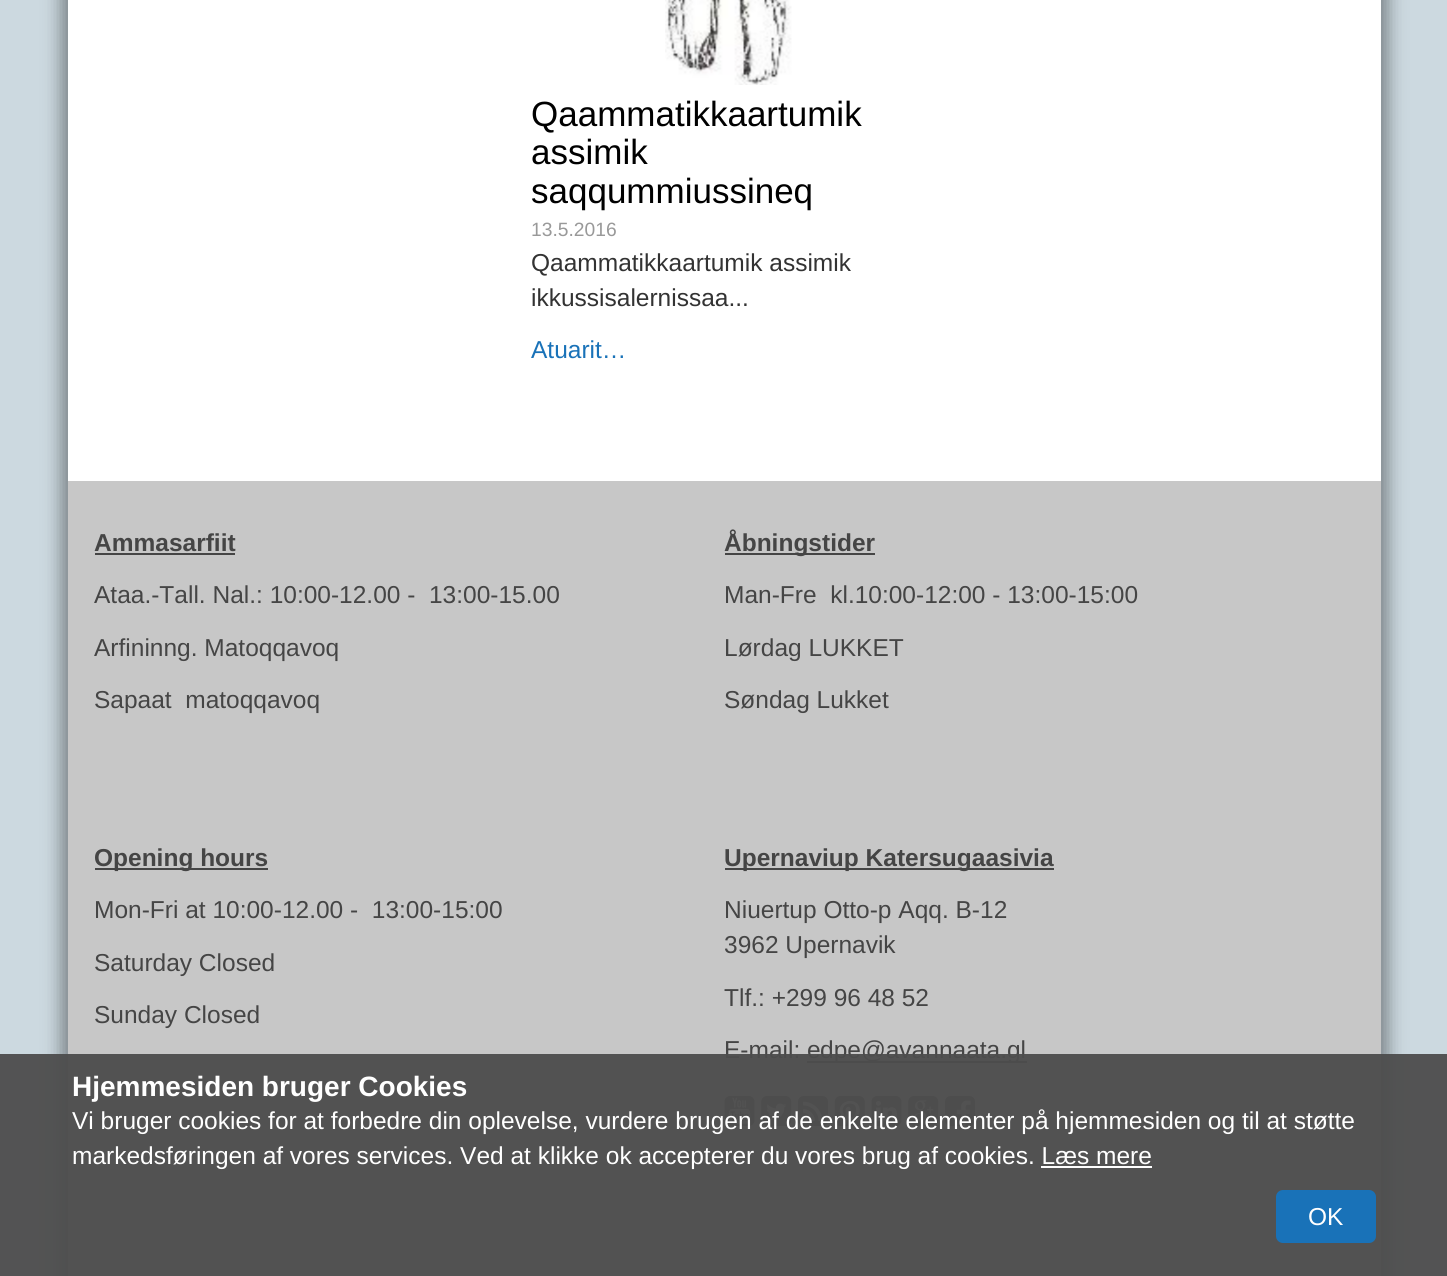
#include <cairo.h>
#include <math.h>
#include <stddef.h>


static void set_color(cairo_t *cr, unsigned color) {
    cairo_set_source_rgb(cr, (color >> 16) / 255.0, (color >> 8 & 255) / 255.0, (color & 255) / 255.0);
}

static void draw_text(cairo_t *cr, double x, double y, const char *s, const char *family, double size, int italic, int bold, unsigned color) {
    cairo_select_font_face(cr, family, italic ? CAIRO_FONT_SLANT_ITALIC : CAIRO_FONT_SLANT_NORMAL,
        bold ? CAIRO_FONT_WEIGHT_BOLD : CAIRO_FONT_WEIGHT_NORMAL);
    cairo_set_font_size(cr, size);
    set_color(cr, color);
    cairo_move_to(cr, x, y);
    cairo_show_text(cr, s);
}

static void fill_rect(cairo_t *cr, double x, double y, double w, double h, unsigned color) {
    set_color(cr, color);
    cairo_rectangle(cr, x, y, w, h);
    cairo_fill(cr);
}

static void rounded_rect(cairo_t *cr, double x, double y, double w, double h, double r) {
    cairo_new_sub_path(cr);
    cairo_arc(cr, x + w - r, y + h - r, r, 0, M_PI / 2);
    cairo_arc(cr, x + r, y + h - r, r, M_PI / 2, M_PI);
    cairo_arc(cr, x + r, y + r, r, M_PI, 1.5 * M_PI);
    cairo_arc(cr, x + w - r, y + r, r, 1.5 * M_PI, 2 * M_PI);
    cairo_close_path(cr);
}

static void draw_shadow(cairo_t *cr, double x, double y, double w, double h, double r, double blur, double alpha) {
    cairo_push_group_with_content(cr, CAIRO_CONTENT_ALPHA);
    cairo_set_operator(cr, CAIRO_OPERATOR_SOURCE);
    for (int i = 15; i >= -15 && fmin(w, h) + blur * i / 3 > 0; i -= 2) {
        double e = blur * i / 6;
        cairo_set_source_rgba(cr, 0, 0, 0, alpha * erfc((i - 1) / 8.5) / 2);
        rounded_rect(cr, x - e, y - e, w + 2 * e, h + 2 * e, fmax(0, fmin(r + e + blur * .6, fmin(w, h) / 2 + e)));
        cairo_fill(cr);
    }
    cairo_pattern_t *soft = cairo_pop_group(cr);
    cairo_mask(cr, soft);
    cairo_pattern_destroy(soft);
}

static void draw_image(cairo_t *cr, const char *path, double x, double y, double w, double h) {
    cairo_surface_t *image = cairo_image_surface_create_from_png(path);
    cairo_save(cr);
    cairo_set_source_surface(cr, image, x, y);
    cairo_rectangle(cr, x, y, w, h);
    cairo_fill(cr);
    cairo_restore(cr);
    cairo_surface_destroy(image);
}

int main(void) {
    cairo_surface_t *surface = cairo_image_surface_create(CAIRO_FORMAT_RGB24, 1447, 1276);
    cairo_t *cr = cairo_create(surface);
    cairo_font_options_t *options = cairo_font_options_create();
    cairo_font_options_set_hint_metrics(options, CAIRO_HINT_METRICS_OFF);
    cairo_font_options_set_hint_style(options, CAIRO_HINT_STYLE_NONE);
    cairo_set_font_options(cr, options);
    cairo_set_miter_limit(cr, 4);
    set_color(cr, 0xCCD9E0);
    cairo_paint(cr);
    set_color(cr, 0x000000);
    draw_shadow(cr, 61, -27, 1327, 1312, 0, 9, 0.4);
    fill_rect(cr, 68, 0, 1313, 481, 0xFFFFFF);
    draw_image(cr, "assets/img1.png", 665, 0, 127, 85);
    draw_text(cr, 531, 126, "Qaammatikkaartumik", "Liberation Sans", 35, 0, 0, 0x000000);
    draw_text(cr, 531, 164, "assimik", "Liberation Sans", 35, 0, 0, 0x000000);
    draw_text(cr, 531, 203, "saqqummiussineq", "Liberation Sans", 35, 0, 0, 0x000000);
    draw_text(cr, 531, 236, "13.5.2016", "Liberation Sans", 19.25, 0, 0, 0x999999);
    draw_text(cr, 531, 271, "Qaammatikkaartumik assimik", "Liberation Sans", 24.5, 0, 0, 0x333333);
    draw_text(cr, 531, 306, "ikkussisalernissaa...", "Liberation Sans", 24.5, 0, 0, 0x333333);
    draw_text(cr, 531, 358, "Atuarit…", "Liberation Sans", 24.5, 0, 0, 0x1972B8);
    fill_rect(cr, 68, 481, 1313, 795, 0xC7C7C7);
    draw_text(cr, 94, 551, "Ammasarfiit", "Liberation Sans", 24.5, 0, 1, 0x454545);
    fill_rect(cr, 95, 553, 140, 2, 0x454545);
    draw_text(cr, 94, 603, "Ataa.-Tall. Nal.: 10:00-12.00 -  13:00-15.00", "Liberation Sans", 24.5, 0, 0, 0x454545);
    draw_text(cr, 94, 656, "Arfininng. Matoqqavoq", "Liberation Sans", 24.5, 0, 0, 0x454545);
    draw_text(cr, 94, 708, "Sapaat  matoqqavoq", "Liberation Sans", 24.5, 0, 0, 0x454545);
    fill_rect(cr, 725, 553, 150, 2, 0x454545);
    draw_text(cr, 724, 551, "Åbningstider", "Liberation Sans", 24.5, 0, 1, 0x454545);
    draw_text(cr, 724, 603, "Man-Fre  kl.10:00-12:00 - 13:00-15:00", "Liberation Sans", 24.5, 0, 0, 0x454545);
    draw_text(cr, 724, 656, "Lørdag LUKKET", "Liberation Sans", 24.5, 0, 0, 0x454545);
    draw_text(cr, 724, 708, "Søndag Lukket", "Liberation Sans", 24.5, 0, 0, 0x454545);
    fill_rect(cr, 95, 868, 173, 2, 0x454545);
    draw_text(cr, 94, 866, "Opening hours", "Liberation Sans", 24.5, 0, 1, 0x454545);
    draw_text(cr, 94, 918, "Mon-Fri at 10:00-12.00 -  13:00-15:00", "Liberation Sans", 24.5, 0, 0, 0x454545);
    draw_text(cr, 94, 971, "Saturday Closed", "Liberation Sans", 24.5, 0, 0, 0x454545);
    draw_text(cr, 94, 1023, "Sunday Closed", "Liberation Sans", 24.5, 0, 0, 0x454545);
    fill_rect(cr, 725, 868, 329, 2, 0x454545);
    draw_text(cr, 724, 866, "Upernaviup Katersugaasivia", "Liberation Sans", 24.5, 0, 1, 0x454545);
    draw_text(cr, 724, 918, "Niuertup Otto-p Aqq. B-12", "Liberation Sans", 24.5, 0, 0, 0x454545);
    draw_text(cr, 724, 953, "3962 Upernavik", "Liberation Sans", 24.5, 0, 0, 0x454545);
    draw_text(cr, 724, 1006, "Tlf.: +299 96 48 52", "Liberation Sans", 24.5, 0, 0, 0x454545);
    draw_text(cr, 724, 1058, "E-mail: e", "Liberation Sans", 24.5, 0, 0, 0x454545);
    fill_rect(cr, 807, 1061, 220, 2, 0x454545);
    draw_text(cr, 820, 1058, "dpe@avannaata.gl", "Liberation Sans", 24.5, 0, 0, 0x454545);
    draw_image(cr, "assets/img2.png", 724, 1096, 31, 30);
    draw_image(cr, "assets/img3.png", 761, 1096, 31, 30);
    draw_image(cr, "assets/img4.png", 798, 1096, 30, 30);
    draw_image(cr, "assets/img5.png", 834, 1096, 31, 30);
    draw_image(cr, "assets/img6.png", 871, 1096, 31, 30);
    draw_image(cr, "assets/img7.png", 908, 1096, 31, 30);
    draw_image(cr, "assets/img8.png", 945, 1096, 30, 30);
    cairo_set_source_rgba(cr, 0.302, 0.302, 0.302, 0.95);
    cairo_rectangle(cr, 0, 1054, 1447, 222);
    cairo_fill(cr);
    draw_text(cr, 72, 1096, "Hjemmesiden bruger Cookies", "Liberation Sans", 28, 0, 1, 0xFFFFFF);
    draw_text(cr, 72, 1129, "Vi bruger cookies for at forbedre din oplevelse, vurdere brugen af de enkelte elementer på hjemmesiden og til at støtte", "Liberation Sans", 24.5, 0, 0, 0xFFFFFF);
    draw_text(cr, 72, 1164, "markedsføringen af vores services. Ved at klikke ok accepterer du vores brug af cookies. Læs mere", "Liberation Sans", 24.5, 0, 0, 0xFFFFFF);
    fill_rect(cr, 1041, 1166, 111, 2, 0xFFFFFF);
    set_color(cr, 0x1972B8);
    rounded_rect(cr, 1276, 1190, 100, 53, 7);
    cairo_fill(cr);
    draw_text(cr, 1308, 1225, "OK", "Liberation Sans", 24.5, 0, 0, 0xFFFFFF);
    cairo_surface_write_to_png(surface, "output.png");
    cairo_font_options_destroy(options);
    cairo_destroy(cr);
    cairo_surface_destroy(surface);
    return 0;
}
